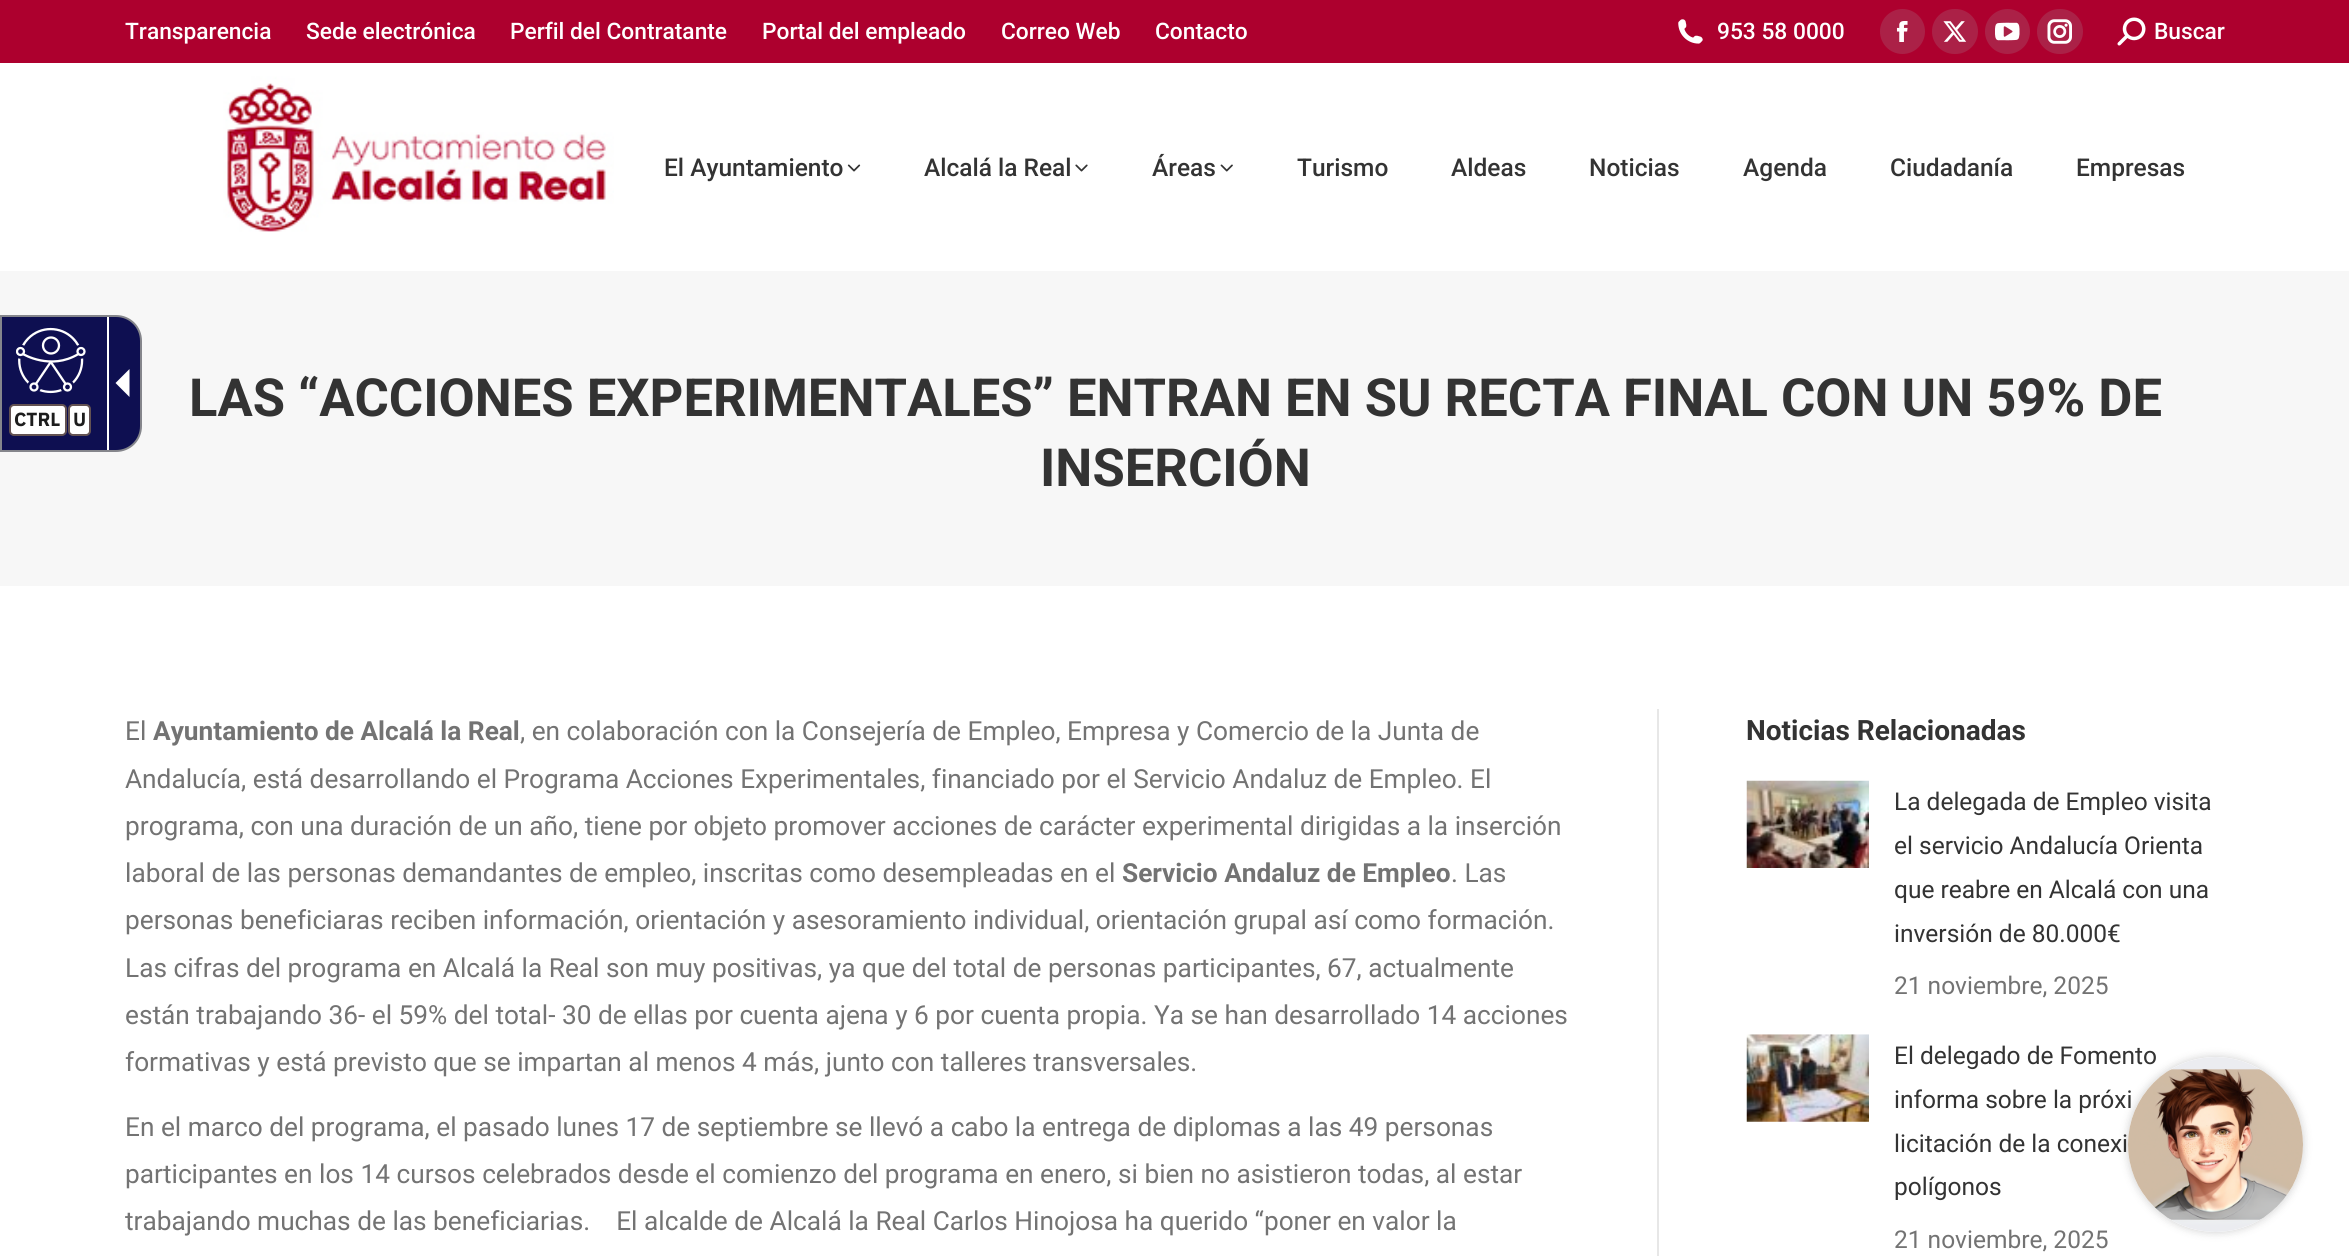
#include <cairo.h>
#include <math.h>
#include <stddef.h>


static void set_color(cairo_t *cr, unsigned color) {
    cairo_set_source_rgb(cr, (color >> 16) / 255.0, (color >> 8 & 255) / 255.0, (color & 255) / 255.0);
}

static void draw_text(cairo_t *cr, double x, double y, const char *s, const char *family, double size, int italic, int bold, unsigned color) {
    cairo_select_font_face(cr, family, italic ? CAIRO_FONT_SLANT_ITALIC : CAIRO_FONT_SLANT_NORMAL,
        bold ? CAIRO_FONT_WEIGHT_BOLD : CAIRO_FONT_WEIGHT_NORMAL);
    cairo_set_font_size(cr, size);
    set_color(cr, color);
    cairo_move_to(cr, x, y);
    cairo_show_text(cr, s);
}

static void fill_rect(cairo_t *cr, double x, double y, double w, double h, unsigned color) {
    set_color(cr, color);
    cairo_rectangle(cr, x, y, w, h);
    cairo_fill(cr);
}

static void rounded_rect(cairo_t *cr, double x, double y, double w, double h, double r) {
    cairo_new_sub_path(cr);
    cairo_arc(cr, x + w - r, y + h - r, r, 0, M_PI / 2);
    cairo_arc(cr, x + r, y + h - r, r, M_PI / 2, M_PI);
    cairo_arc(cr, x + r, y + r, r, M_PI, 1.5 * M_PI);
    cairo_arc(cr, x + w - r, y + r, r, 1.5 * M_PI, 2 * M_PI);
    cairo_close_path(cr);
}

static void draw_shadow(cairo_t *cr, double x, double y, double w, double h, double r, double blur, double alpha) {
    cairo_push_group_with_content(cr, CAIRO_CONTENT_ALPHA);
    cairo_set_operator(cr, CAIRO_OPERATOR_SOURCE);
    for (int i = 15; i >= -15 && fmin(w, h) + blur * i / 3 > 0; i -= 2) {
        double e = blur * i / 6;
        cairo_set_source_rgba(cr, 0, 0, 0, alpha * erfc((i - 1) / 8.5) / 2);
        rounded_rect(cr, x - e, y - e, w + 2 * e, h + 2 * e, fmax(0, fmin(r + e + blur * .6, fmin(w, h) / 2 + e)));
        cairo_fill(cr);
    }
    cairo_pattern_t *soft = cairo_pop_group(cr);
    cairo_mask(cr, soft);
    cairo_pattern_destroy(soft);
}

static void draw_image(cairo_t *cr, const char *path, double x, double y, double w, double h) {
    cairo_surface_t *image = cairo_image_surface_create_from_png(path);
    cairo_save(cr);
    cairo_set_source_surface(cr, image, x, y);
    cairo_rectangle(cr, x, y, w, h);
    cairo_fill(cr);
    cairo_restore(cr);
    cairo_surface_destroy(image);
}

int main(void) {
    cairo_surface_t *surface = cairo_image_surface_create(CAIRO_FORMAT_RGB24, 2349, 1256);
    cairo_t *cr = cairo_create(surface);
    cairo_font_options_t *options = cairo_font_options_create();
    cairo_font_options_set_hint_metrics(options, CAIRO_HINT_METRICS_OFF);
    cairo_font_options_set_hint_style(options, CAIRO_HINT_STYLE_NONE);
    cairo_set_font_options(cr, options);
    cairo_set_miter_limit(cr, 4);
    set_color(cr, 0xFFFFFF);
    cairo_paint(cr);
    fill_rect(cr, 0, 271, 2349, 315, 0xF7F7F7);
    set_color(cr, 0x0E0F51);
    cairo_new_path(cr);
    cairo_move_to(cr, 1, 316);
    cairo_line_to(cr, 116, 316);
    cairo_curve_to(cr, 130, 316, 141, 327, 141, 341);
    cairo_line_to(cr, 141, 426);
    cairo_curve_to(cr, 141, 440, 130, 451, 116, 451);
    cairo_line_to(cr, 1, 451);
    cairo_close_path(cr);
    cairo_fill_preserve(cr);
    set_color(cr, 0x85868C);
    cairo_stroke(cr);
    set_color(cr, 0xFFFFFF);
    cairo_new_path(cr);
    cairo_move_to(cr, 129.5, 369);
    cairo_line_to(cr, 129.5, 397);
    cairo_line_to(cr, 115.5, 383);
    cairo_close_path(cr);
    cairo_fill(cr);
    fill_rect(cr, 107, 317, 2, 133, 0xFFFFFF);
    draw_image(cr, "assets/img1.png", 16, 327, 70, 67);
    rounded_rect(cr, 10, 405, 56, 30, 4);
    cairo_fill_preserve(cr);
    set_color(cr, 0x635252);
    cairo_stroke(cr);
    draw_text(cr, 14, 426, "CTRL", "IBM Plex Sans", 19, 0, 1, 0x1D1D1D);
    set_color(cr, 0xFFFFFF);
    rounded_rect(cr, 69, 405, 21, 30, 4);
    cairo_fill_preserve(cr);
    set_color(cr, 0x635252);
    cairo_stroke(cr);
    draw_text(cr, 73, 426, "U", "IBM Plex Sans", 19, 0, 1, 0x1D1D1D);
    fill_rect(cr, 0, 0, 2349, 63, 0xAD002E);
    draw_text(cr, 125, 39, "Transparencia", "Roboto Medium", 22.75, 0, 0, 0xFFFFFF);
    draw_text(cr, 306, 39, "Sede electrónica", "Roboto Medium", 22.75, 0, 0, 0xFFFFFF);
    draw_text(cr, 510, 39, "Perfil del Contratante", "Roboto Medium", 22.75, 0, 0, 0xFFFFFF);
    draw_text(cr, 762, 39, "Portal del empleado", "Roboto Medium", 22.75, 0, 0, 0xFFFFFF);
    draw_text(cr, 1001, 39, "Correo Web", "Roboto Medium", 22.75, 0, 0, 0xFFFFFF);
    draw_text(cr, 1155, 39, "Contacto", "Roboto Medium", 22.75, 0, 0, 0xFFFFFF);
    draw_image(cr, "assets/img2.png", 1678, 19, 25, 25);
    draw_text(cr, 1717, 39, "953 58 0000", "Roboto Medium", 22.75, 0, 0, 0xFFFFFF);
    set_color(cr, 0xAB2147);
    cairo_new_path(cr);
    cairo_arc(cr, 1902.5, 31.5, 22.5, 0, 2 * M_PI);
    cairo_fill(cr);
    draw_image(cr, "assets/img3.png", 1896, 21, 12, 21);
    rounded_rect(cr, 1932, 9, 46, 45, 22.5);
    cairo_fill(cr);
    draw_image(cr, "assets/img4.png", 1943, 21, 24, 21);
    cairo_arc(cr, 2007.5, 31.5, 22.5, 0, 2 * M_PI);
    cairo_fill(cr);
    draw_image(cr, "assets/img5.png", 1995, 22, 25, 19);
    rounded_rect(cr, 2037, 9, 46, 45, 22.5);
    cairo_fill(cr);
    draw_image(cr, "assets/img6.png", 2047, 19, 25, 25);
    draw_image(cr, "assets/img7.png", 2117, 17, 29, 29);
    draw_text(cr, 2154, 39, "Buscar", "Roboto Medium", 22.75, 0, 0, 0xFFFFFF);
    draw_image(cr, "assets/img8.png", 196, 63, 418, 169);
    draw_text(cr, 664, 176, "El Ayuntamiento", "Roboto Medium", 24.5, 0, 0, 0x333333);
    draw_image(cr, "assets/img9.png", 847, 164, 14, 8);
    draw_text(cr, 924, 176, "Alcalá la Real", "Roboto Medium", 24.5, 0, 0, 0x333333);
    draw_image(cr, "assets/img10.png", 1075, 164, 13, 8);
    draw_text(cr, 1152, 176, "Áreas", "Roboto Medium", 24.5, 0, 0, 0x333333);
    draw_image(cr, "assets/img11.png", 1220, 164, 13, 8);
    draw_text(cr, 1297, 176, "Turismo", "Roboto Medium", 24.5, 0, 0, 0x333333);
    draw_text(cr, 1451, 176, "Aldeas", "Roboto Medium", 24.5, 0, 0, 0x333333);
    draw_text(cr, 1589, 176, "Noticias", "Roboto Medium", 24.5, 0, 0, 0x333333);
    draw_text(cr, 1743, 176, "Agenda", "Roboto Medium", 24.5, 0, 0, 0x333333);
    draw_text(cr, 1890, 176, "Ciudadanía", "Roboto Medium", 24.5, 0, 0, 0x333333);
    draw_text(cr, 2076, 176, "Empresas", "Roboto Medium", 24.5, 0, 0, 0x333333);
    draw_text(cr, 189, 416, "LAS “ACCIONES EXPERIMENTALES” ENTRAN EN SU RECTA FINAL CON UN 59% DE", "Roboto", 52.5, 0, 1, 0x333333);
    draw_text(cr, 1040, 486, "INSERCIÓN", "Roboto", 52.5, 0, 1, 0x333333);
    draw_text(cr, 125, 740, "El", "Roboto", 26.25, 0, 0, 0x737373);
    draw_text(cr, 153, 740, "Ayuntamiento de Alcalá la Real", "Roboto", 26.25, 0, 1, 0x737373);
    draw_text(cr, 520, 740, ", en colaboración con la Consejería de Empleo, Empresa y Comercio de la Junta de", "Roboto", 26.25, 0, 0, 0x737373);
    draw_text(cr, 125, 788, "Andalucía, está desarrollando el Programa Acciones Experimentales, financiado por el Servicio Andaluz de Empleo. El", "Roboto", 26.25, 0, 0, 0x737373);
    draw_text(cr, 125, 835, "programa, con una duración de un año, tiene por objeto promover acciones de carácter experimental dirigidas a la inserción", "Roboto", 26.25, 0, 0, 0x737373);
    draw_text(cr, 125, 882, "laboral de las personas demandantes de empleo, inscritas como desempleadas en el", "Roboto", 26.25, 0, 0, 0x737373);
    draw_text(cr, 1122, 882, "Servicio Andaluz de Empleo", "Roboto", 26.25, 0, 1, 0x737373);
    draw_text(cr, 1451, 882, ". Las", "Roboto", 26.25, 0, 0, 0x737373);
    draw_text(cr, 125, 929, "personas beneficiaras reciben información, orientación y asesoramiento individual, orientación grupal así como formación.", "Roboto", 26.25, 0, 0, 0x737373);
    draw_text(cr, 125, 977, "Las cifras del programa en Alcalá la Real son muy positivas, ya que del total de personas participantes, 67, actualmente", "Roboto", 26.25, 0, 0, 0x737373);
    draw_text(cr, 125, 1024, "están trabajando 36- el 59% del total- 30 de ellas por cuenta ajena y 6 por cuenta propia. Ya se han desarrollado 14 acciones", "Roboto", 26.25, 0, 0, 0x737373);
    draw_text(cr, 125, 1071, "formativas y está previsto que se impartan al menos 4 más, junto con talleres transversales.", "Roboto", 26.25, 0, 0, 0x737373);
    draw_text(cr, 125, 1136, "En el marco del programa, el pasado lunes 17 de septiembre se llevó a cabo la entrega de diplomas a las 49 personas", "Roboto", 26.25, 0, 0, 0x737373);
    draw_text(cr, 125, 1183, "participantes en los 14 cursos celebrados desde el comienzo del programa en enero, si bien no asistieron todas, al estar", "Roboto", 26.25, 0, 0, 0x737373);
    draw_text(cr, 125, 1230, "trabajando muchas de las beneficiarias.    El alcalde de Alcalá la Real Carlos Hinojosa ha querido “poner en valor la", "Roboto", 26.25, 0, 0, 0x737373);
    fill_rect(cr, 1657, 709, 2, 547, 0xE7E7E7);
    draw_text(cr, 1746, 740, "Noticias Relacionadas", "Roboto", 28, 0, 1, 0x333333);
    draw_image(cr, "assets/img12.png", 1746, 780, 123, 88);
    draw_text(cr, 1894, 810, "La delegada de Empleo visita", "Roboto", 24.5, 0, 0, 0x333333);
    draw_text(cr, 1894, 854, "el servicio Andalucía Orienta", "Roboto", 24.5, 0, 0, 0x333333);
    draw_text(cr, 1894, 898, "que reabre en Alcalá con una", "Roboto", 24.5, 0, 0, 0x333333);
    draw_text(cr, 1894, 942, "inversión de 80.000€", "Roboto", 24.5, 0, 0, 0x333333);
    draw_text(cr, 1894, 994, "21 noviembre, 2025", "Roboto", 24.5, 0, 0, 0x737373);
    draw_image(cr, "assets/img13.png", 1746, 1034, 123, 88);
    draw_text(cr, 1894, 1064, "El delegado de Fomento", "Roboto", 24.5, 0, 0, 0x333333);
    draw_text(cr, 1894, 1108, "informa sobre la próxi", "Roboto", 24.5, 0, 0, 0x333333);
    draw_text(cr, 1894, 1152, "licitación de la conexi", "Roboto", 24.5, 0, 0, 0x333333);
    draw_text(cr, 1894, 1195, "polígonos", "Roboto", 24.5, 0, 0, 0x333333);
    draw_text(cr, 1894, 1248, "21 noviembre, 2025", "Roboto", 24.5, 0, 0, 0x737373);
    set_color(cr, 0x000000);
    draw_shadow(cr, 2128, 1057, 175, 175, 87.5, 4.5, 0.2);
    set_color(cr, 0xFFFFFF);
    cairo_arc(cr, 2215.5, 1144.5, 87.5, 0, 2 * M_PI);
    cairo_fill(cr);
    draw_image(cr, "assets/img14.png", 2128, 1057, 175, 175);
    cairo_surface_write_to_png(surface, "output.png");
    cairo_font_options_destroy(options);
    cairo_destroy(cr);
    cairo_surface_destroy(surface);
    return 0;
}
